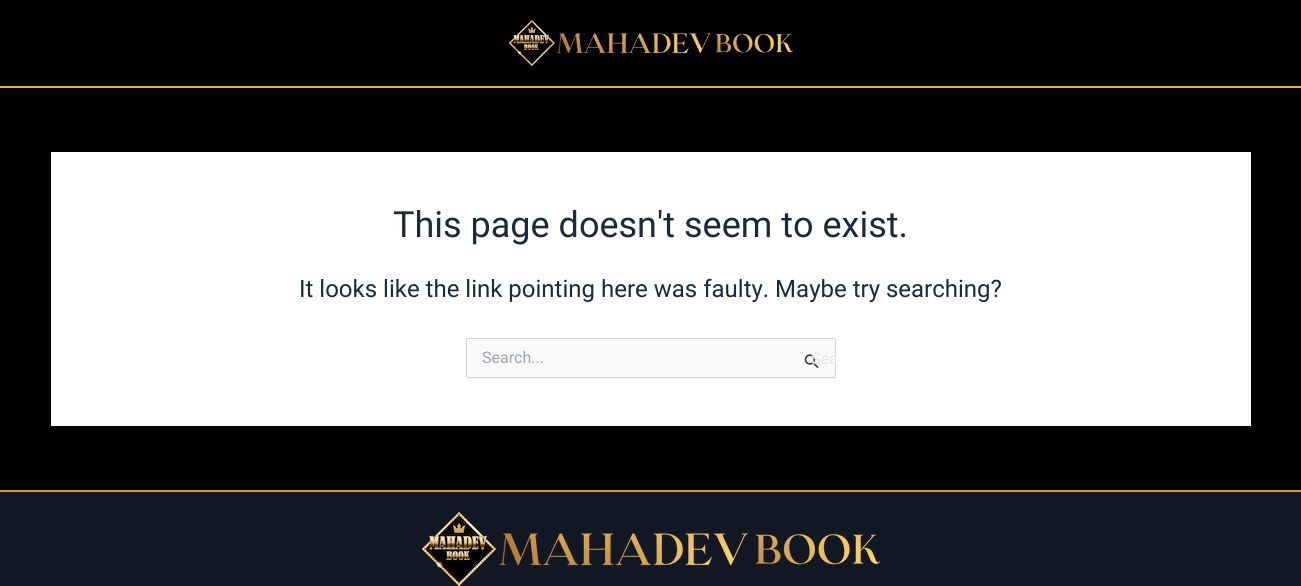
#include <cairo.h>
#include <math.h>
#include <stddef.h>


static void set_color(cairo_t *cr, unsigned color) {
    cairo_set_source_rgb(cr, (color >> 16) / 255.0, (color >> 8 & 255) / 255.0, (color & 255) / 255.0);
}

static void draw_text(cairo_t *cr, double x, double y, const char *s, const char *family, double size, int italic, int bold, unsigned color) {
    cairo_select_font_face(cr, family, italic ? CAIRO_FONT_SLANT_ITALIC : CAIRO_FONT_SLANT_NORMAL,
        bold ? CAIRO_FONT_WEIGHT_BOLD : CAIRO_FONT_WEIGHT_NORMAL);
    cairo_set_font_size(cr, size);
    set_color(cr, color);
    cairo_move_to(cr, x, y);
    cairo_show_text(cr, s);
}

static void fill_rect(cairo_t *cr, double x, double y, double w, double h, unsigned color) {
    set_color(cr, color);
    cairo_rectangle(cr, x, y, w, h);
    cairo_fill(cr);
}

static void rounded_rect(cairo_t *cr, double x, double y, double w, double h, double r) {
    cairo_new_sub_path(cr);
    cairo_arc(cr, x + w - r, y + h - r, r, 0, M_PI / 2);
    cairo_arc(cr, x + r, y + h - r, r, M_PI / 2, M_PI);
    cairo_arc(cr, x + r, y + r, r, M_PI, 1.5 * M_PI);
    cairo_arc(cr, x + w - r, y + r, r, 1.5 * M_PI, 2 * M_PI);
    cairo_close_path(cr);
}

static void draw_shadow(cairo_t *cr, double x, double y, double w, double h, double r, double blur, double alpha) {
    cairo_push_group_with_content(cr, CAIRO_CONTENT_ALPHA);
    cairo_set_operator(cr, CAIRO_OPERATOR_SOURCE);
    for (int i = 15; i >= -15 && fmin(w, h) + blur * i / 3 > 0; i -= 2) {
        double e = blur * i / 6;
        cairo_set_source_rgba(cr, 0, 0, 0, alpha * erfc((i - 1) / 8.5) / 2);
        rounded_rect(cr, x - e, y - e, w + 2 * e, h + 2 * e, fmax(0, fmin(r + e + blur * .6, fmin(w, h) / 2 + e)));
        cairo_fill(cr);
    }
    cairo_pattern_t *soft = cairo_pop_group(cr);
    cairo_mask(cr, soft);
    cairo_pattern_destroy(soft);
}

static void draw_image(cairo_t *cr, const char *path, double x, double y, double w, double h) {
    cairo_surface_t *image = cairo_image_surface_create_from_png(path);
    cairo_save(cr);
    cairo_set_source_surface(cr, image, x, y);
    cairo_rectangle(cr, x, y, w, h);
    cairo_fill(cr);
    cairo_restore(cr);
    cairo_surface_destroy(image);
}

int main(void) {
    cairo_surface_t *surface = cairo_image_surface_create(CAIRO_FORMAT_RGB24, 1301, 586);
    cairo_t *cr = cairo_create(surface);
    cairo_font_options_t *options = cairo_font_options_create();
    cairo_font_options_set_hint_metrics(options, CAIRO_HINT_METRICS_OFF);
    cairo_font_options_set_hint_style(options, CAIRO_HINT_STYLE_NONE);
    cairo_set_font_options(cr, options);
    cairo_set_miter_limit(cr, 4);
    set_color(cr, 0x000000);
    cairo_paint(cr);
    fill_rect(cr, 0, 86, 1301, 2, 0xFCB400);
    draw_image(cr, "assets/img1.png", 509, 20, 284, 46);
    fill_rect(cr, 51, 152, 1200, 274, 0xFFFFFF);
    draw_text(cr, 393, 237, "This page doesn't seem to exist.", "Roboto", 36, 0, 0, 0x1E293B);
    draw_text(cr, 299, 297, "It looks like the link pointing here was faulty. Maybe try searching?", "Roboto", 24, 0, 0, 0x1E293B);
    set_color(cr, 0x000000);
    draw_shadow(cr, 466, 339, 370, 40, 2, 1, 0.05);
    set_color(cr, 0xFAFAFA);
    rounded_rect(cr, 466.5, 338.5, 369, 39, 1.5);
    cairo_fill_preserve(cr);
    set_color(cr, 0xD1D5DB);
    cairo_set_line_width(cr, 1);
    cairo_stroke(cr);
    draw_text(cr, 482, 363, "Search...", "Roboto", 16, 0, 0, 0x9CA3AF);
    draw_image(cr, "assets/img2.png", 804, 354, 15, 15);
    cairo_save(cr);
    rounded_rect(cr, 791, 338, 45, 42, 2);
    cairo_clip(cr);
    draw_text(cr, 811, 364, "Sea", "Roboto Medium", 16, 0, 0, 0xE6E7E7);
    cairo_restore(cr);
    fill_rect(cr, 0, 492, 1301, 94, 0x111823);
    fill_rect(cr, 0, 490, 1301, 2, 0xE09500);
    draw_image(cr, "assets/img3.png", 422, 512, 459, 74);
    cairo_surface_write_to_png(surface, "output.png");
    cairo_font_options_destroy(options);
    cairo_destroy(cr);
    cairo_surface_destroy(surface);
    return 0;
}
